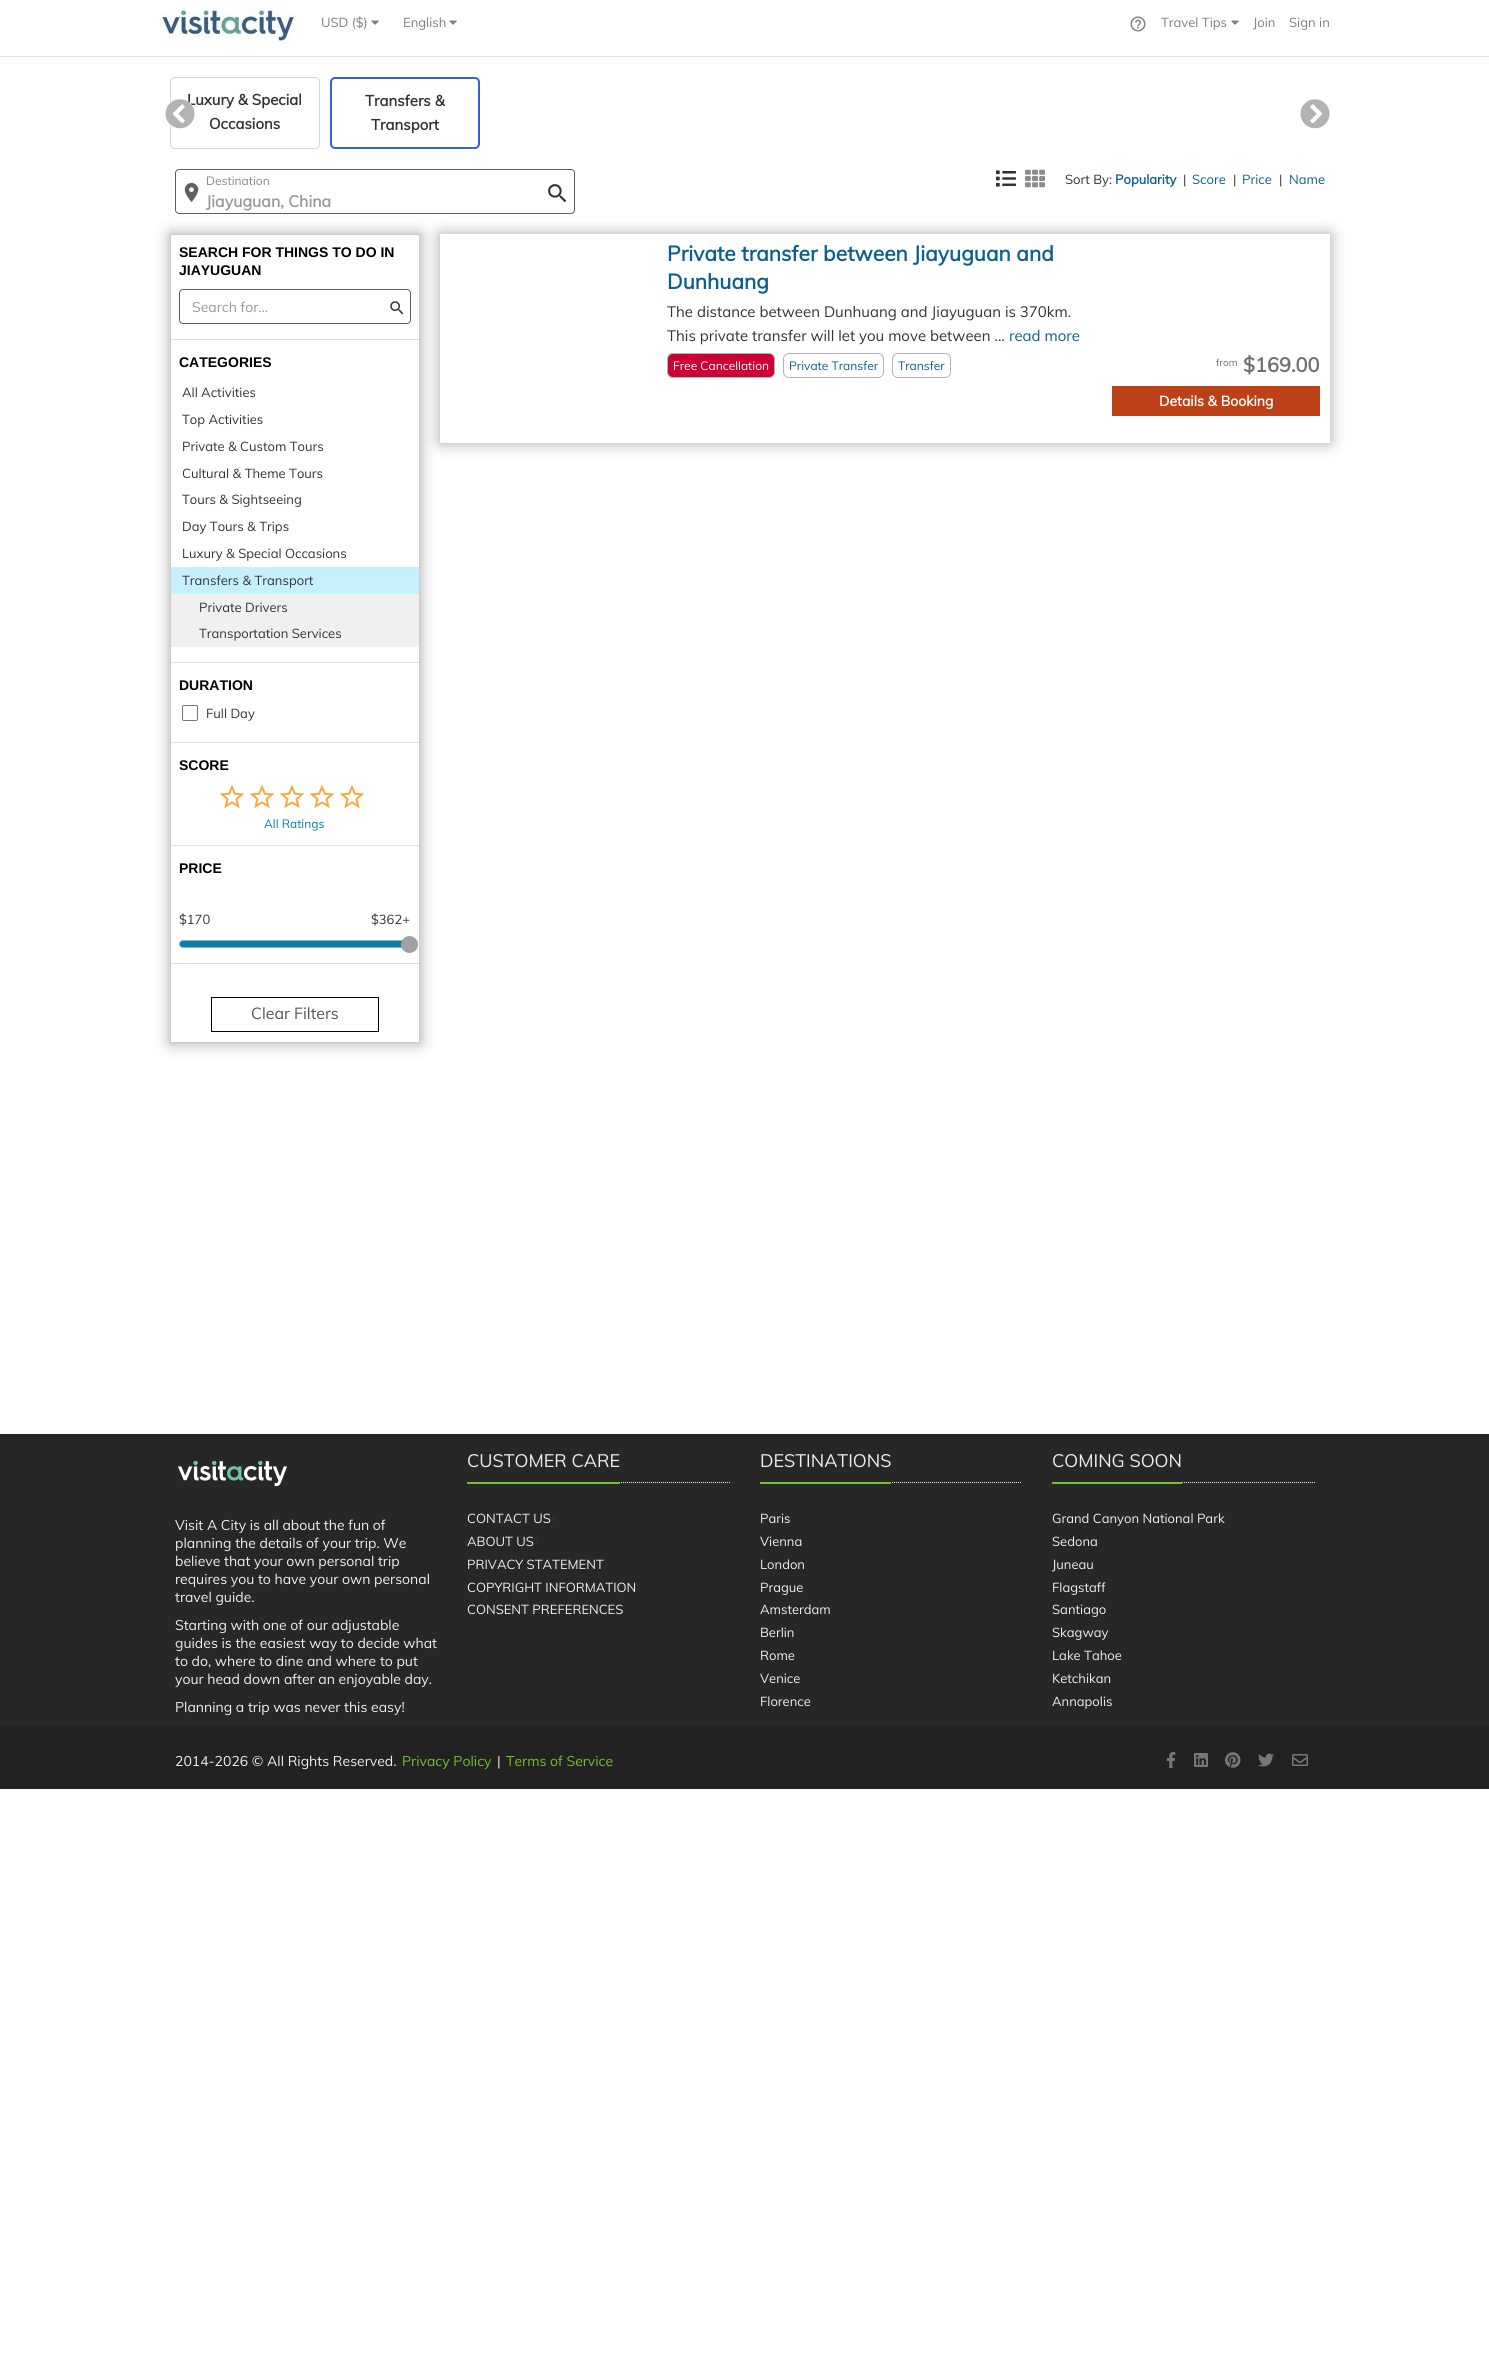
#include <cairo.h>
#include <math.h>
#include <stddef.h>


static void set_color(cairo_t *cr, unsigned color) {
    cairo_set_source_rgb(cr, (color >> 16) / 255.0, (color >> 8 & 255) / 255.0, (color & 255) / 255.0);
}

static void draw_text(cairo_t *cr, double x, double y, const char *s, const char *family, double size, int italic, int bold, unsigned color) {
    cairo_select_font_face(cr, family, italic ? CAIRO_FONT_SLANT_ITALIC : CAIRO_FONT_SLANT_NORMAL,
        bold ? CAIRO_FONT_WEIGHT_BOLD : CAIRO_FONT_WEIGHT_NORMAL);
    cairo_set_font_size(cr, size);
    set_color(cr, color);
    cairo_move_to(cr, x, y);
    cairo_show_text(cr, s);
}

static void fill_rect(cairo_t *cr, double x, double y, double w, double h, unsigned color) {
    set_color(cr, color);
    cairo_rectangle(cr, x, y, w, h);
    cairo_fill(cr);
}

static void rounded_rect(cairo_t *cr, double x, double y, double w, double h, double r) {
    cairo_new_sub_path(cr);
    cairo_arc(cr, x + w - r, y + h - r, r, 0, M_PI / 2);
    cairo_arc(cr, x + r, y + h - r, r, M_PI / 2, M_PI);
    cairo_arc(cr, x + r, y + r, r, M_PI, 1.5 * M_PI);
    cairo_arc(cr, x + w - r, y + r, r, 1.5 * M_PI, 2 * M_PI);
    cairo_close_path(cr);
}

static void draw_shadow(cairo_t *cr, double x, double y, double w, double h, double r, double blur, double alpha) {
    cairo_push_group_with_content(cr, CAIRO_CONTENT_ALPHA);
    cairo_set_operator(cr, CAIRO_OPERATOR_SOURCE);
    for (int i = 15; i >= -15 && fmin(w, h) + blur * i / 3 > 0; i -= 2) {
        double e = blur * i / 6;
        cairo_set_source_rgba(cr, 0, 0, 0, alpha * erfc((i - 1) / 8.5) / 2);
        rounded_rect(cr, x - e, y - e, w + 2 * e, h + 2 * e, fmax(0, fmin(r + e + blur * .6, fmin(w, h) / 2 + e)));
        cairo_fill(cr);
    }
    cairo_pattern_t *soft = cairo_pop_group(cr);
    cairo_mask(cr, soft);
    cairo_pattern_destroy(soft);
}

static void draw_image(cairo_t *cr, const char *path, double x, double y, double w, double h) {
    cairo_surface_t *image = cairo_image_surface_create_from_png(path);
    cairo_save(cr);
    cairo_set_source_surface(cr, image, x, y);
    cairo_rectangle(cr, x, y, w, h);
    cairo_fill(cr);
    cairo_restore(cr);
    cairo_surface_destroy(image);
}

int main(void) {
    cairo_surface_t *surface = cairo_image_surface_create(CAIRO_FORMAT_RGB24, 1489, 2360);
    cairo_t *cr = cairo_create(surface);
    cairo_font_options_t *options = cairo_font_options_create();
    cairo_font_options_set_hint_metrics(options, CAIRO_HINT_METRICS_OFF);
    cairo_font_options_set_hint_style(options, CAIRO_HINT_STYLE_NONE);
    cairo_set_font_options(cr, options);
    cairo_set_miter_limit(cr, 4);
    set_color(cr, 0xFFFFFF);
    cairo_paint(cr);
    draw_image(cr, "assets/img1.png", 160, 8, 136, 36);
    draw_text(cr, 321, 27, "USD ($)", "Muli", 13, 0, 0, 0x7C8082);
    draw_image(cr, "assets/img2.png", 371, 20, 8, 5);
    draw_text(cr, 403, 27, "English", "Muli", 13, 0, 0, 0x7C8082);
    draw_image(cr, "assets/img2.png", 449, 20, 8, 5);
    draw_image(cr, "assets/img3.png", 1130, 16, 16, 16);
    draw_text(cr, 1161, 27, "Travel Tips", "Muli", 13, 0, 0, 0x7C8082);
    draw_image(cr, "assets/img2.png", 1231, 20, 8, 5);
    draw_text(cr, 1253, 27, "Join", "Muli", 13, 0, 0, 0x7C8082);
    draw_text(cr, 1289, 27, "Sign in", "Muli", 13, 0, 0, 0x7C8082);
    fill_rect(cr, 0, 56, 1489, 1, 0xE0E1E5);
    rounded_rect(cr, 170.5, 77.5, 149, 71, 4.5);
    set_color(cr, 0xD7D4D2);
    cairo_set_line_width(cr, 1);
    cairo_stroke(cr);
    draw_text(cr, 187, 105, "Luxury & Special", "Muli", 15, 0, 1, 0x333333);
    set_color(cr, 0xFFFFFF);
    rounded_rect(cr, 165, 99, 30, 31, 15);
    cairo_fill(cr);
    draw_image(cr, "assets/img4.png", 165, 99, 30, 30);
    draw_text(cr, 209, 129, "Occasions", "Muli", 15, 0, 1, 0x333333);
    rounded_rect(cr, 331, 78, 148, 70, 4);
    set_color(cr, 0x3662D8);
    cairo_set_line_width(cr, 2);
    cairo_stroke(cr);
    draw_text(cr, 365, 106, "Transfers &", "Muli", 15, 0, 1, 0x333333);
    draw_text(cr, 371, 130, "Transport", "Muli", 15, 0, 1, 0x333333);
    draw_image(cr, "assets/img5.png", 1300, 99, 30, 30);
    rounded_rect(cr, 175.5, 169.5, 399, 44, 3.5);
    set_color(cr, 0x606060);
    cairo_set_line_width(cr, 1);
    cairo_stroke(cr);
    draw_text(cr, 206, 185, "Destination", "Muli", 12, 0, 0, 0x8C8787);
    draw_image(cr, "assets/img6.png", 184, 182, 15, 20);
    draw_text(cr, 206, 207, "Jiayuguan, China", "Muli", 16, 0, 1, 0x999999);
    draw_image(cr, "assets/img7.png", 548, 184, 19, 19);
    draw_image(cr, "assets/img8.png", 996, 170, 20, 17);
    draw_image(cr, "assets/img9.png", 1025, 169, 20, 19);
    draw_text(cr, 1065, 184, "Sort By:", "Muli", 13, 0, 0, 0x333333);
    draw_text(cr, 1115, 184, "Popularity", "Muli", 13, 0, 1, 0x0C608E);
    draw_text(cr, 1183, 184, "|", "Muli", 13, 0, 0, 0x333333);
    draw_text(cr, 1192, 184, "Score", "Muli", 13, 0, 0, 0x0C608E);
    draw_text(cr, 1233, 184, "|", "Muli", 13, 0, 0, 0x333333);
    draw_text(cr, 1242, 184, "Price", "Muli", 13, 0, 0, 0x0C608E);
    draw_text(cr, 1279, 184, "|", "Muli", 13, 0, 0, 0x333333);
    draw_text(cr, 1289, 184, "Name", "Muli", 13, 0, 0, 0x0C608E);
    cairo_save(cr);
    cairo_set_fill_rule(cr, CAIRO_FILL_RULE_EVEN_ODD);
    cairo_new_path(cr);
    cairo_move_to(cr, 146, 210);
    cairo_line_to(cr, 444, 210);
    cairo_line_to(cr, 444, 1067);
    cairo_line_to(cr, 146, 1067);
    cairo_close_path(cr);
    cairo_move_to(cr, 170, 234);
    cairo_line_to(cr, 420, 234);
    cairo_line_to(cr, 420, 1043);
    cairo_line_to(cr, 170, 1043);
    cairo_close_path(cr);
    cairo_clip(cr);
    set_color(cr, 0x000000);
    draw_shadow(cr, 170, 234, 250, 809, 0, 7.5, 0.35);
    cairo_restore(cr);
    cairo_save(cr);
    cairo_set_fill_rule(cr, CAIRO_FILL_RULE_EVEN_ODD);
    cairo_new_path(cr);
    cairo_move_to(cr, 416, 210);
    cairo_line_to(cr, 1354, 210);
    cairo_line_to(cr, 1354, 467);
    cairo_line_to(cr, 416, 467);
    cairo_close_path(cr);
    cairo_move_to(cr, 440, 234);
    cairo_line_to(cr, 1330, 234);
    cairo_line_to(cr, 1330, 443);
    cairo_line_to(cr, 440, 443);
    cairo_close_path(cr);
    cairo_clip(cr);
    set_color(cr, 0x000000);
    draw_shadow(cr, 440, 234, 890, 209, 0, 7.5, 0.35);
    cairo_restore(cr);
    cairo_rectangle(cr, 170.5, 234.5, 249, 808);
    set_color(cr, 0xCCCCCC);
    cairo_stroke(cr);
    draw_text(cr, 179, 257, "SEARCH FOR THINGS TO DO IN", "Liberation Sans", 14, 0, 1, 0x000000);
    draw_text(cr, 179, 275, "JIAYUGUAN", "Liberation Sans", 14, 0, 1, 0x000000);
    rounded_rect(cr, 179.5, 289.5, 231, 34, 3.5);
    set_color(cr, 0x606060);
    cairo_stroke(cr);
    draw_text(cr, 192, 312, "Search for...", "Muli", 14, 0, 0, 0x999999);
    draw_image(cr, "assets/img10.png", 390, 301, 14, 14);
    fill_rect(cr, 171, 339, 248, 1, 0xE2E2E2);
    draw_text(cr, 179, 367, "CATEGORIES", "Liberation Sans", 14, 0, 1, 0x000000);
    draw_text(cr, 182, 397, "All Activities", "Muli", 13, 0, 0, 0x333333);
    draw_text(cr, 182, 424, "Top Activities", "Muli", 13, 0, 0, 0x333333);
    draw_text(cr, 182, 451, "Private & Custom Tours", "Muli", 13, 0, 0, 0x333333);
    draw_text(cr, 182, 478, "Cultural & Theme Tours", "Muli", 13, 0, 0, 0x333333);
    draw_text(cr, 182, 504, "Tours & Sightseeing", "Muli", 13, 0, 0, 0x333333);
    draw_text(cr, 182, 531, "Day Tours & Trips", "Muli", 13, 0, 0, 0x333333);
    draw_text(cr, 182, 558, "Luxury & Special Occasions", "Muli", 13, 0, 0, 0x333333);
    fill_rect(cr, 171, 594, 248, 53, 0xF0F0F0);
    fill_rect(cr, 171, 567, 248, 27, 0xC6F0FF);
    draw_text(cr, 182, 585, "Transfers & Transport", "Muli", 13, 0, 0, 0x333333);
    draw_text(cr, 199, 612, "Private Drivers", "Muli", 13, 0, 0, 0x333333);
    draw_text(cr, 199, 638, "Transportation Services", "Muli", 13, 0, 0, 0x333333);
    fill_rect(cr, 171, 662, 248, 1, 0xE2E2E2);
    draw_text(cr, 179, 690, "DURATION", "Liberation Sans", 14, 0, 1, 0x000000);
    rounded_rect(cr, 182.5, 705.5, 15, 15, 1.5);
    set_color(cr, 0x767676);
    cairo_stroke(cr);
    draw_text(cr, 206, 718, "Full Day", "Muli", 13, 0, 0, 0x333333);
    fill_rect(cr, 171, 742, 248, 1, 0xE2E2E2);
    draw_text(cr, 179, 770, "SCORE", "Liberation Sans", 14, 0, 1, 0x000000);
    draw_image(cr, "assets/img11.png", 219, 784, 26, 25);
    draw_image(cr, "assets/img11.png", 249, 784, 26, 25);
    draw_image(cr, "assets/img11.png", 279, 784, 26, 25);
    draw_image(cr, "assets/img11.png", 309, 784, 26, 25);
    draw_image(cr, "assets/img11.png", 339, 784, 26, 25);
    draw_text(cr, 264, 828, "All Ratings", "Muli", 12, 0, 0, 0x007FAD);
    fill_rect(cr, 171, 845, 248, 1, 0xE2E2E2);
    draw_text(cr, 179, 873, "PRICE", "Liberation Sans", 14, 0, 1, 0x000000);
    draw_text(cr, 179, 924, "$170", "Muli", 13, 0, 0, 0x333333);
    draw_text(cr, 371, 924, "$362+", "Muli", 13, 0, 0, 0x333333);
    set_color(cr, 0x007FAA);
    rounded_rect(cr, 179.5, 940.5, 231, 7, 3.5);
    cairo_fill_preserve(cr);
    set_color(cr, 0xAAAAAA);
    cairo_stroke(cr);
    set_color(cr, 0xA0A0A0);
    cairo_arc(cr, 409.5, 944.5, 8.5, 0, 2 * M_PI);
    cairo_fill(cr);
    fill_rect(cr, 171, 963, 248, 1, 0xE2E2E2);
    cairo_rectangle(cr, 211.5, 997.5, 167, 34);
    set_color(cr, 0x000000);
    cairo_stroke(cr);
    draw_text(cr, 251, 1019, "Clear Filters", "Muli", 16, 0, 0, 0x555555);
    draw_text(cr, 667, 261, "Private transfer between Jiayuguan and", "Muli", 21, 0, 1, 0x0C608E);
    draw_text(cr, 667, 289, "Dunhuang", "Muli", 21, 0, 1, 0x0C608E);
    draw_text(cr, 667, 317, "The distance between Dunhuang and Jiayuguan is 370km.", "Muli", 15, 0, 0, 0x333333);
    draw_text(cr, 667, 341, "This private transfer will let you move between ...", "Muli", 15, 0, 0, 0x333333);
    draw_text(cr, 1009, 341, "read more", "Muli", 15, 0, 0, 0x0C608E);
    set_color(cr, 0xCC0033);
    rounded_rect(cr, 667.5, 353.5, 107, 24, 5.5);
    cairo_fill_preserve(cr);
    set_color(cr, 0xB4B4B4);
    cairo_stroke(cr);
    draw_text(cr, 673, 370, "Free Cancellation", "Muli", 12, 0, 0, 0xFFFFFF);
    rounded_rect(cr, 783.5, 353.5, 100, 24, 5.5);
    set_color(cr, 0xB4B4B4);
    cairo_stroke(cr);
    draw_text(cr, 789, 370, "Private Transfer", "Muli", 12, 0, 0, 0x0C608E);
    rounded_rect(cr, 892.5, 353.5, 58, 24, 5.5);
    set_color(cr, 0xB4B4B4);
    cairo_stroke(cr);
    draw_text(cr, 898, 370, "Transfer", "Muli", 12, 0, 0, 0x0C608E);
    draw_text(cr, 1216, 366, "from", "Muli", 10, 0, 0, 0x6D7072);
    draw_text(cr, 1243, 372, "$169.00", "Muli", 20, 0, 1, 0x6D7072);
    fill_rect(cr, 1112, 386, 208, 30, 0xBD4116);
    draw_text(cr, 1159, 406, "Details & Booking", "Muli", 14, 0, 1, 0xFFFFFF);
    fill_rect(cr, 0, 1434, 1489, 292, 0x272727);
    draw_image(cr, "assets/img12.png", 178, 1461, 109, 25);
    draw_text(cr, 175, 1530, "Visit A City is all about the fun of", "Muli", 14, 0, 0, 0xEEEEEE);
    draw_text(cr, 175, 1548, "planning the details of your trip. We", "Muli", 14, 0, 0, 0xEEEEEE);
    draw_text(cr, 175, 1566, "believe that your own personal trip", "Muli", 14, 0, 0, 0xEEEEEE);
    draw_text(cr, 175, 1584, "requires you to have your own personal", "Muli", 14, 0, 0, 0xEEEEEE);
    draw_text(cr, 175, 1602, "travel guide.", "Muli", 14, 0, 0, 0xEEEEEE);
    draw_text(cr, 175, 1630, "Starting with one of our adjustable", "Muli", 14, 0, 0, 0xEEEEEE);
    draw_text(cr, 175, 1648, "guides is the easiest way to decide what", "Muli", 14, 0, 0, 0xEEEEEE);
    draw_text(cr, 175, 1666, "to do, where to dine and where to put", "Muli", 14, 0, 0, 0xEEEEEE);
    draw_text(cr, 175, 1684, "your head down after an enjoyable day.", "Muli", 14, 0, 0, 0xEEEEEE);
    draw_text(cr, 175, 1712, "Planning a trip was never this easy!", "Muli", 14, 0, 0, 0xEEEEEE);
    cairo_new_path(cr);
    cairo_move_to(cr, 467, 1482.5);
    cairo_line_to(cr, 730, 1482.5);
    set_color(cr, 0xE4E9F0);
    cairo_set_dash(cr, (double[]){1, 1}, 2, 0);
    cairo_stroke(cr);
    fill_rect(cr, 467, 1482, 153, 2, 0x72C02C);
    draw_text(cr, 467, 1467, "CUSTOMER CARE", "Muli", 18, 0, 0, 0xEEEEEE);
    draw_text(cr, 467, 1523, "CONTACT US", "Muli", 13, 0, 0, 0xEEEEEE);
    draw_image(cr, "assets/img13.png", 552, 1515, 3, 6);
    draw_text(cr, 467, 1546, "ABOUT US", "Muli", 13, 0, 0, 0xEEEEEE);
    draw_image(cr, "assets/img13.png", 535, 1538, 3, 6);
    draw_text(cr, 467, 1569, "PRIVACY STATEMENT", "Muli", 13, 0, 0, 0xEEEEEE);
    draw_image(cr, "assets/img13.png", 605, 1561, 3, 6);
    draw_text(cr, 467, 1592, "COPYRIGHT INFORMATION", "Muli", 13, 0, 0, 0xEEEEEE);
    draw_image(cr, "assets/img13.png", 637, 1584, 3, 6);
    draw_text(cr, 467, 1614, "CONSENT PREFERENCES", "Muli", 13, 0, 0, 0xEEEEEE);
    cairo_new_path(cr);
    cairo_move_to(cr, 760, 1482.5);
    cairo_line_to(cr, 1022, 1482.5);
    set_color(cr, 0xE4E9F0);
    cairo_stroke(cr);
    fill_rect(cr, 760, 1482, 131, 2, 0x72C02C);
    draw_text(cr, 760, 1467, "DESTINATIONS", "Muli", 18, 0, 0, 0xEEEEEE);
    draw_text(cr, 760, 1523, "Paris", "Muli", 13, 0, 0, 0xEEEEEE);
    draw_text(cr, 760, 1546, "Vienna", "Muli", 13, 0, 0, 0xEEEEEE);
    draw_text(cr, 760, 1569, "London", "Muli", 13, 0, 0, 0xEEEEEE);
    draw_text(cr, 760, 1592, "Prague", "Muli", 13, 0, 0, 0xEEEEEE);
    draw_text(cr, 760, 1614, "Amsterdam", "Muli", 13, 0, 0, 0xEEEEEE);
    draw_text(cr, 760, 1637, "Berlin", "Muli", 13, 0, 0, 0xEEEEEE);
    draw_text(cr, 760, 1660, "Rome", "Muli", 13, 0, 0, 0xEEEEEE);
    draw_text(cr, 760, 1683, "Venice", "Muli", 13, 0, 0, 0xEEEEEE);
    draw_text(cr, 760, 1706, "Florence", "Muli", 13, 0, 0, 0xEEEEEE);
    cairo_new_path(cr);
    cairo_move_to(cr, 1052, 1482.5);
    cairo_line_to(cr, 1315, 1482.5);
    set_color(cr, 0xE4E9F0);
    cairo_stroke(cr);
    fill_rect(cr, 1052, 1482, 130, 2, 0x72C02C);
    draw_text(cr, 1052, 1467, "COMING SOON", "Muli", 18, 0, 0, 0xEEEEEE);
    draw_text(cr, 1052, 1523, "Grand Canyon National Park", "Muli", 13, 0, 0, 0xEEEEEE);
    draw_text(cr, 1052, 1546, "Sedona", "Muli", 13, 0, 0, 0xEEEEEE);
    draw_text(cr, 1052, 1569, "Juneau", "Muli", 13, 0, 0, 0xEEEEEE);
    draw_text(cr, 1052, 1592, "Flagstaff", "Muli", 13, 0, 0, 0xEEEEEE);
    draw_text(cr, 1052, 1614, "Santiago", "Muli", 13, 0, 0, 0xEEEEEE);
    draw_text(cr, 1052, 1637, "Skagway", "Muli", 13, 0, 0, 0xEEEEEE);
    draw_text(cr, 1052, 1660, "Lake Tahoe", "Muli", 13, 0, 0, 0xEEEEEE);
    draw_text(cr, 1052, 1683, "Ketchikan", "Muli", 13, 0, 0, 0xEEEEEE);
    draw_text(cr, 1052, 1706, "Annapolis", "Muli", 13, 0, 0, 0xEEEEEE);
    fill_rect(cr, 0, 1726, 1489, 63, 0x222222);
    draw_text(cr, 175, 1766, "2014-2026 © All Rights Reserved.", "Muli", 14, 0, 0, 0xEEEEEE);
    draw_text(cr, 402, 1766, "Privacy Policy", "Muli", 14, 0, 0, 0x72C02C);
    draw_text(cr, 497, 1766, "|", "Muli", 14, 0, 0, 0xEEEEEE);
    draw_text(cr, 506, 1766, "Terms of Service", "Muli", 14, 0, 0, 0x72C02C);
    draw_image(cr, "assets/img14.png", 1166, 1752, 10, 16);
    draw_image(cr, "assets/img15.png", 1194, 1753, 14, 14);
    draw_image(cr, "assets/img16.png", 1225, 1752, 16, 16);
    draw_image(cr, "assets/img17.png", 1258, 1753, 16, 14);
    draw_image(cr, "assets/img18.png", 1292, 1754, 16, 12);
    cairo_surface_write_to_png(surface, "output.png");
    cairo_font_options_destroy(options);
    cairo_destroy(cr);
    cairo_surface_destroy(surface);
    return 0;
}
